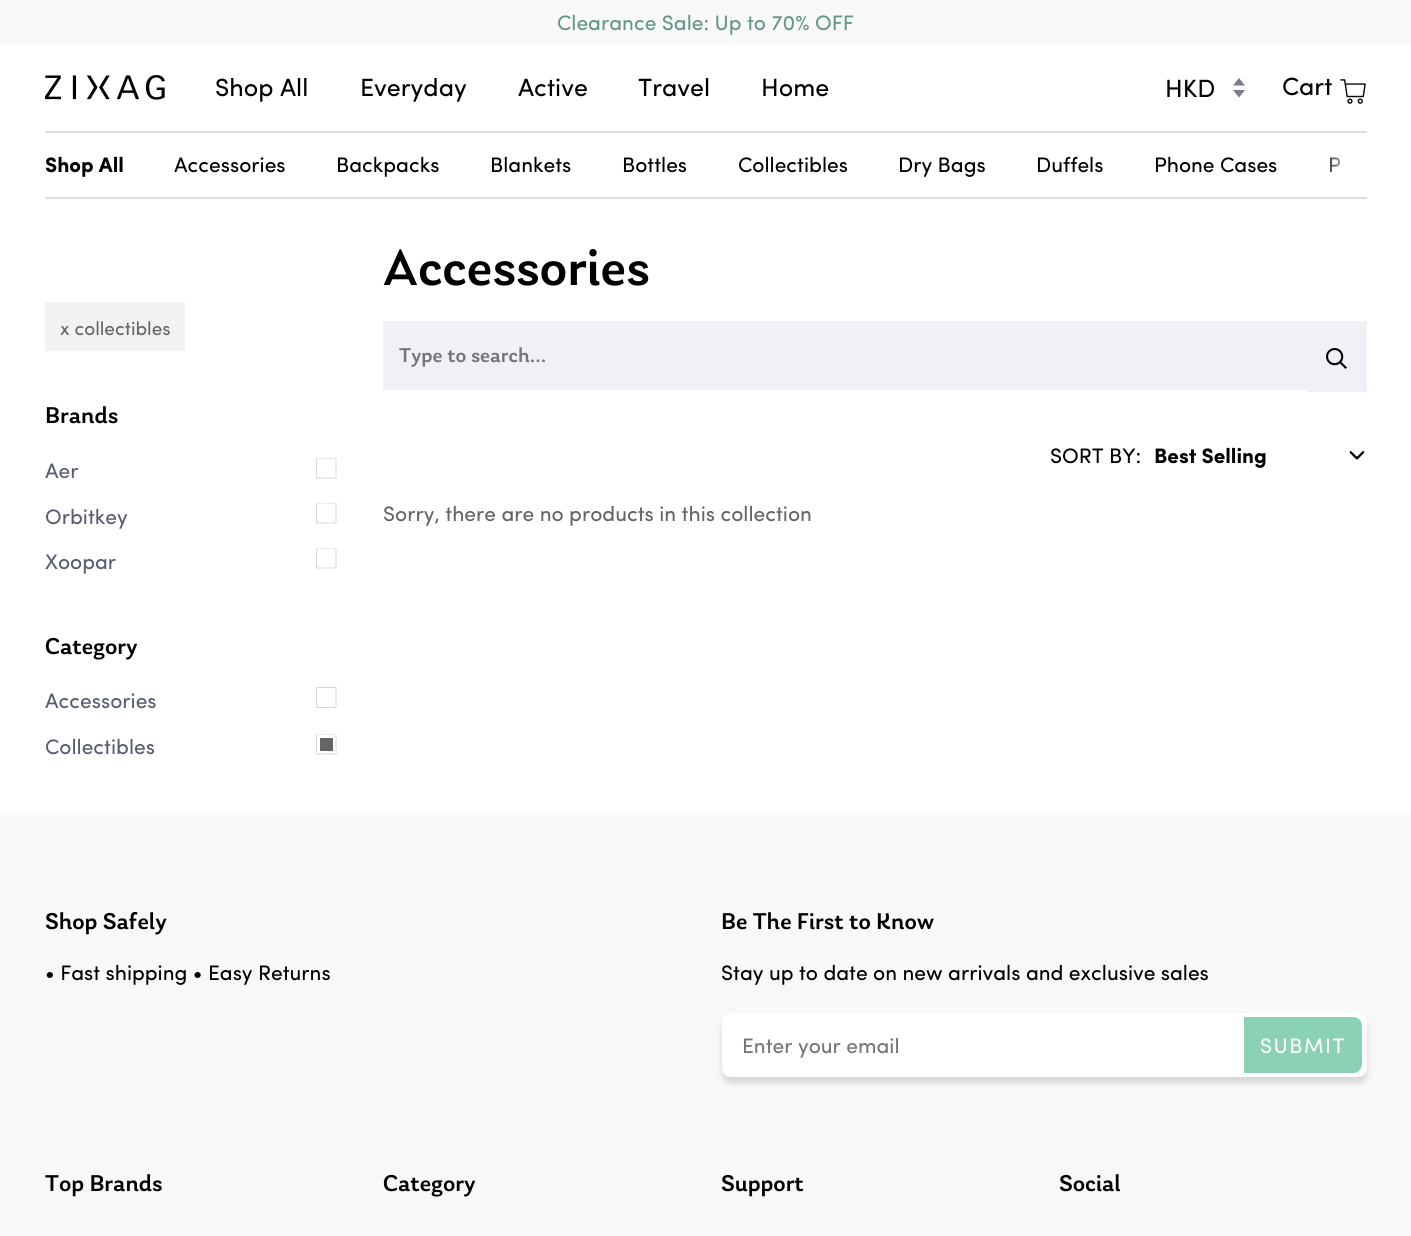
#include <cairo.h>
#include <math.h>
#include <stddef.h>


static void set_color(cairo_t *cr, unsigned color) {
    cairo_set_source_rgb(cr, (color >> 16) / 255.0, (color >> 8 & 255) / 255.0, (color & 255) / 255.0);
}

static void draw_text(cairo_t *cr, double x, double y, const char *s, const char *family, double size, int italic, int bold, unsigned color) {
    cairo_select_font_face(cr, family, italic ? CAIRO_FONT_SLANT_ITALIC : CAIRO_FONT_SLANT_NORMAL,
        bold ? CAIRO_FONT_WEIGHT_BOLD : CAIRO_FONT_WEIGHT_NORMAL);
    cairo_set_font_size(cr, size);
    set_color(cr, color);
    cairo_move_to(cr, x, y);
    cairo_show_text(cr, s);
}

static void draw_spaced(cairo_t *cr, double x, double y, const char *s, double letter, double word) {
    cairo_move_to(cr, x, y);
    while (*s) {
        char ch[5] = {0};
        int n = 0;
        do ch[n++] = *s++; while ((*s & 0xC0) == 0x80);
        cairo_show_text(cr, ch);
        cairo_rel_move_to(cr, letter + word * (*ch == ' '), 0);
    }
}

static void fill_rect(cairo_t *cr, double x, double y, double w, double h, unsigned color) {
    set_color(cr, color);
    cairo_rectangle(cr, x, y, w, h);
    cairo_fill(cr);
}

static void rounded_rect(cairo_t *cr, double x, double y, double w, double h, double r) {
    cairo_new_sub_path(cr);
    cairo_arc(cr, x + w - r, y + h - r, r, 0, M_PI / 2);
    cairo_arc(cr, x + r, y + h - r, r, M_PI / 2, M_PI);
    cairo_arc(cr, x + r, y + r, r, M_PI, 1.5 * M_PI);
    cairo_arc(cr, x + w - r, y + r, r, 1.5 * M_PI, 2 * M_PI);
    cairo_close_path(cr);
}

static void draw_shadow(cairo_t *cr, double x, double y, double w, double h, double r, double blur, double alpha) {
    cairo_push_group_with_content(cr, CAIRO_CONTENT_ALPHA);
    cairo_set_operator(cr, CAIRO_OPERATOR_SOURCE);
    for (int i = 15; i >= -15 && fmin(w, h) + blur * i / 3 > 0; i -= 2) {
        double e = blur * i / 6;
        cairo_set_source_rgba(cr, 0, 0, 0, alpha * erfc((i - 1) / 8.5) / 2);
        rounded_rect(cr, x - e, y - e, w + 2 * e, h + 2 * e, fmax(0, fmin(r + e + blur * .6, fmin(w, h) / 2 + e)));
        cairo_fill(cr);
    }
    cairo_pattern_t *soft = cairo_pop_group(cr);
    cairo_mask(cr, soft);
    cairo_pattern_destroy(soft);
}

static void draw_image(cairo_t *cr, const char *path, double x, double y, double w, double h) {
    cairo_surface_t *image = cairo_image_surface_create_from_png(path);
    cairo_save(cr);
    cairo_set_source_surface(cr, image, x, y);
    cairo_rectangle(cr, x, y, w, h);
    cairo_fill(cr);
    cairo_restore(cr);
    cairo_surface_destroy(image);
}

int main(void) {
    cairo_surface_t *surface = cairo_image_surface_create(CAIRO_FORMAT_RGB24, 1411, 1236);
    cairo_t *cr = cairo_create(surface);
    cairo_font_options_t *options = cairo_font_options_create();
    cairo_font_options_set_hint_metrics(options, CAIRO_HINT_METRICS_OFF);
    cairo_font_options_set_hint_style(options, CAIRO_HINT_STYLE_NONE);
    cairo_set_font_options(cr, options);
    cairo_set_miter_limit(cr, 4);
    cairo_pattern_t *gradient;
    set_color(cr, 0xFFFFFF);
    cairo_paint(cr);
    fill_rect(cr, 0, 0, 1411, 45, 0xF8F8F8);
    draw_text(cr, 557, 30, "Clearance Sale: Up to 70% OFF", "Sofia", 21, 0, 0, 0x62958B);
    fill_rect(cr, 45, 131, 1322, 2, 0xDDDDDD);
    draw_image(cr, "assets/img1.png", 45, 75, 120, 25);
    draw_text(cr, 215, 96, "Shop All", "Sofia", 25, 0, 0, 0x000000);
    draw_text(cr, 360, 96, "Everyday", "Sofia", 25, 0, 0, 0x000000);
    draw_text(cr, 518, 96, "Active", "Sofia", 25, 0, 0, 0x000000);
    draw_text(cr, 638, 96, "Travel", "Sofia", 25, 0, 0, 0x000000);
    draw_text(cr, 761, 96, "Home", "Sofia", 25, 0, 0, 0x000000);
    draw_image(cr, "assets/img2.png", 1233, 78, 12, 20);
    draw_text(cr, 1165, 97, "HKD", "Sofia", 25, 0, 0, 0x000000);
    draw_text(cr, 1282, 95, "Cart", "Sofia", 25, 0, 0, 0x000000);
    draw_image(cr, "assets/img3.png", 1340, 79, 26, 25);
    fill_rect(cr, 45, 197, 1322, 2, 0xDDDDDD);
    draw_text(cr, 45, 172, "Shop All", "Sofia", 21, 0, 1, 0x000000);
    draw_text(cr, 174, 172, "Accessories", "Sofia", 21, 0, 0, 0x000000);
    draw_text(cr, 336, 172, "Backpacks", "Sofia", 21, 0, 0, 0x000000);
    draw_text(cr, 490, 172, "Blankets", "Sofia", 21, 0, 0, 0x000000);
    draw_text(cr, 622, 172, "Bottles", "Sofia", 21, 0, 0, 0x000000);
    draw_text(cr, 738, 172, "Collectibles", "Sofia", 21, 0, 0, 0x000000);
    draw_text(cr, 898, 172, "Dry Bags", "Sofia", 21, 0, 0, 0x000000);
    draw_text(cr, 1036, 172, "Duffels", "Sofia", 21, 0, 0, 0x000000);
    draw_text(cr, 1154, 172, "Phone Cases", "Sofia", 21, 0, 0, 0x000000);
    draw_text(cr, 1328, 172, "P", "Sofia", 21, 0, 0, 0x000000);
    gradient = cairo_pattern_create_linear(1352, 164, 1322, 164);
    cairo_pattern_add_color_stop_rgba(gradient, 0, 1, 1, 1, 1);
    cairo_pattern_add_color_stop_rgba(gradient, 1, 1, 1, 1, 0);
    cairo_set_source(cr, gradient);
    cairo_pattern_destroy(gradient);
    cairo_rectangle(cr, 1329, 157, 11, 15);
    cairo_fill(cr);
    draw_text(cr, 383, 285, "Accessories", "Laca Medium", 54, 0, 0, 0x000000);
    fill_rect(cr, 45, 302, 140, 49, 0xF2F2F2);
    draw_text(cr, 60, 335, "x collectibles", "Sofia", 19, 0, 0, 0x656565);
    draw_text(cr, 45, 423, "Brands", "Laca Medium", 24, 0, 0, 0x000000);
    draw_text(cr, 45, 478, "Aer", "Sofia", 21, 0, 0, 0x585E71);
    cairo_save(cr);
    cairo_rectangle(cr, 315, 458, 23, 21);
    cairo_clip(cr);
    cairo_new_path(cr);
    cairo_move_to(cr, 316.5, 458);
    cairo_line_to(cr, 336, 458);
    cairo_line_to(cr, 336, 478);
    cairo_line_to(cr, 316.5, 478);
    cairo_close_path(cr);
    set_color(cr, 0xD9D9D9);
    cairo_set_line_width(cr, 1);
    cairo_stroke(cr);
    cairo_restore(cr);
    draw_text(cr, 45, 524, "Orbitkey", "Sofia", 21, 0, 0, 0x585E71);
    cairo_save(cr);
    cairo_rectangle(cr, 315, 503, 23, 21);
    cairo_clip(cr);
    cairo_new_path(cr);
    cairo_move_to(cr, 316.5, 503);
    cairo_line_to(cr, 336, 503);
    cairo_line_to(cr, 336, 523);
    cairo_line_to(cr, 316.5, 523);
    cairo_close_path(cr);
    set_color(cr, 0xD9D9D9);
    cairo_set_line_width(cr, 1);
    cairo_stroke(cr);
    cairo_restore(cr);
    draw_text(cr, 45, 569, "Xoopar", "Sofia", 21, 0, 0, 0x585E71);
    cairo_save(cr);
    cairo_rectangle(cr, 315, 548, 23, 21);
    cairo_clip(cr);
    cairo_new_path(cr);
    cairo_move_to(cr, 316.5, 548);
    cairo_line_to(cr, 336, 548);
    cairo_line_to(cr, 336, 568);
    cairo_line_to(cr, 316.5, 568);
    cairo_close_path(cr);
    set_color(cr, 0xD9D9D9);
    cairo_set_line_width(cr, 1);
    cairo_stroke(cr);
    cairo_restore(cr);
    draw_text(cr, 45, 654, "Category", "Laca Medium", 24, 0, 0, 0x000000);
    draw_text(cr, 45, 708, "Accessories", "Sofia", 21, 0, 0, 0x585E71);
    cairo_new_path(cr);
    cairo_move_to(cr, 316.5, 687.5);
    cairo_line_to(cr, 336, 687.5);
    cairo_line_to(cr, 336, 707.5);
    cairo_line_to(cr, 316.5, 707.5);
    cairo_close_path(cr);
    set_color(cr, 0xD9D9D9);
    cairo_set_line_width(cr, 1);
    cairo_stroke(cr);
    draw_text(cr, 45, 754, "Collectibles", "Sofia", 21, 0, 0, 0x585E71);
    cairo_save(cr);
    cairo_rectangle(cr, 315, 734, 23, 21);
    cairo_clip(cr);
    cairo_new_path(cr);
    cairo_move_to(cr, 316.5, 734);
    cairo_line_to(cr, 336, 734);
    cairo_line_to(cr, 336, 754);
    cairo_line_to(cr, 316.5, 754);
    cairo_close_path(cr);
    set_color(cr, 0xD9D9D9);
    cairo_stroke(cr);
    cairo_restore(cr);
    fill_rect(cr, 320, 738, 13, 13, 0x656565);
    fill_rect(cr, 383, 321, 924, 69, 0xF0F1F6);
    draw_text(cr, 399, 362, "Type to search...", "Laca Medium", 21, 0, 0, 0x757575);
    fill_rect(cr, 1307, 321, 60, 71, 0xF0F1F6);
    draw_image(cr, "assets/img4.png", 1326, 348, 21, 21);
    draw_text(cr, 1050, 463, "SORT BY:", "Sofia", 21, 0, 0, 0x000000);
    draw_image(cr, "assets/img5.png", 1349, 451, 16, 9);
    draw_text(cr, 1154, 463, "Best Selling", "Sofia", 21, 0, 1, 0x000000);
    draw_text(cr, 383, 521, "Sorry, there are no products in this collection", "Sofia", 21, 0, 0, 0x656565);
    fill_rect(cr, 0, 815, 1411, 421, 0xF8F8F8);
    draw_text(cr, 45, 929, "Shop Safely", "Laca Medium", 24, 0, 0, 0x000000);
    draw_text(cr, 45, 980, "• Fast shipping • Easy Returns", "Sofia", 21, 0, 0, 0x000000);
    draw_text(cr, 721, 929, "Be The First to Know", "Laca Medium", 24, 0, 0, 0x000000);
    draw_text(cr, 721, 980, "Stay up to date on new arrivals and exclusive sales", "Sofia", 21, 0, 0, 0x000000);
    set_color(cr, 0xC8C8C8);
    draw_shadow(cr, 722, 1019, 645, 64, 9, 3, 0.7);
    set_color(cr, 0xFFFFFF);
    rounded_rect(cr, 722, 1013, 645, 64, 9);
    cairo_fill(cr);
    draw_text(cr, 742, 1053, "Enter your email", "Sofia", 21, 0, 0, 0x757575);
    set_color(cr, 0x8BD2B5);
    cairo_new_path(cr);
    cairo_move_to(cr, 1244, 1017);
    cairo_line_to(cr, 1353, 1017);
    cairo_curve_to(cr, 1358, 1017, 1362, 1021, 1362, 1026);
    cairo_line_to(cr, 1362, 1064);
    cairo_curve_to(cr, 1362, 1069, 1358, 1073, 1353, 1073);
    cairo_line_to(cr, 1244, 1073);
    cairo_close_path(cr);
    cairo_fill(cr);
    set_color(cr, 0xFFFFFF);
    draw_spaced(cr, 1260, 1053, "SUBMIT", 1.5, 0);
    draw_text(cr, 45, 1191, "Top Brands", "Laca Medium", 24, 0, 0, 0x000000);
    draw_text(cr, 383, 1191, "Category", "Laca Medium", 24, 0, 0, 0x000000);
    draw_text(cr, 721, 1191, "Support", "Laca Medium", 24, 0, 0, 0x000000);
    draw_text(cr, 1059, 1191, "Social", "Laca Medium", 24, 0, 0, 0x000000);
    cairo_surface_write_to_png(surface, "output.png");
    cairo_font_options_destroy(options);
    cairo_destroy(cr);
    cairo_surface_destroy(surface);
    return 0;
}
